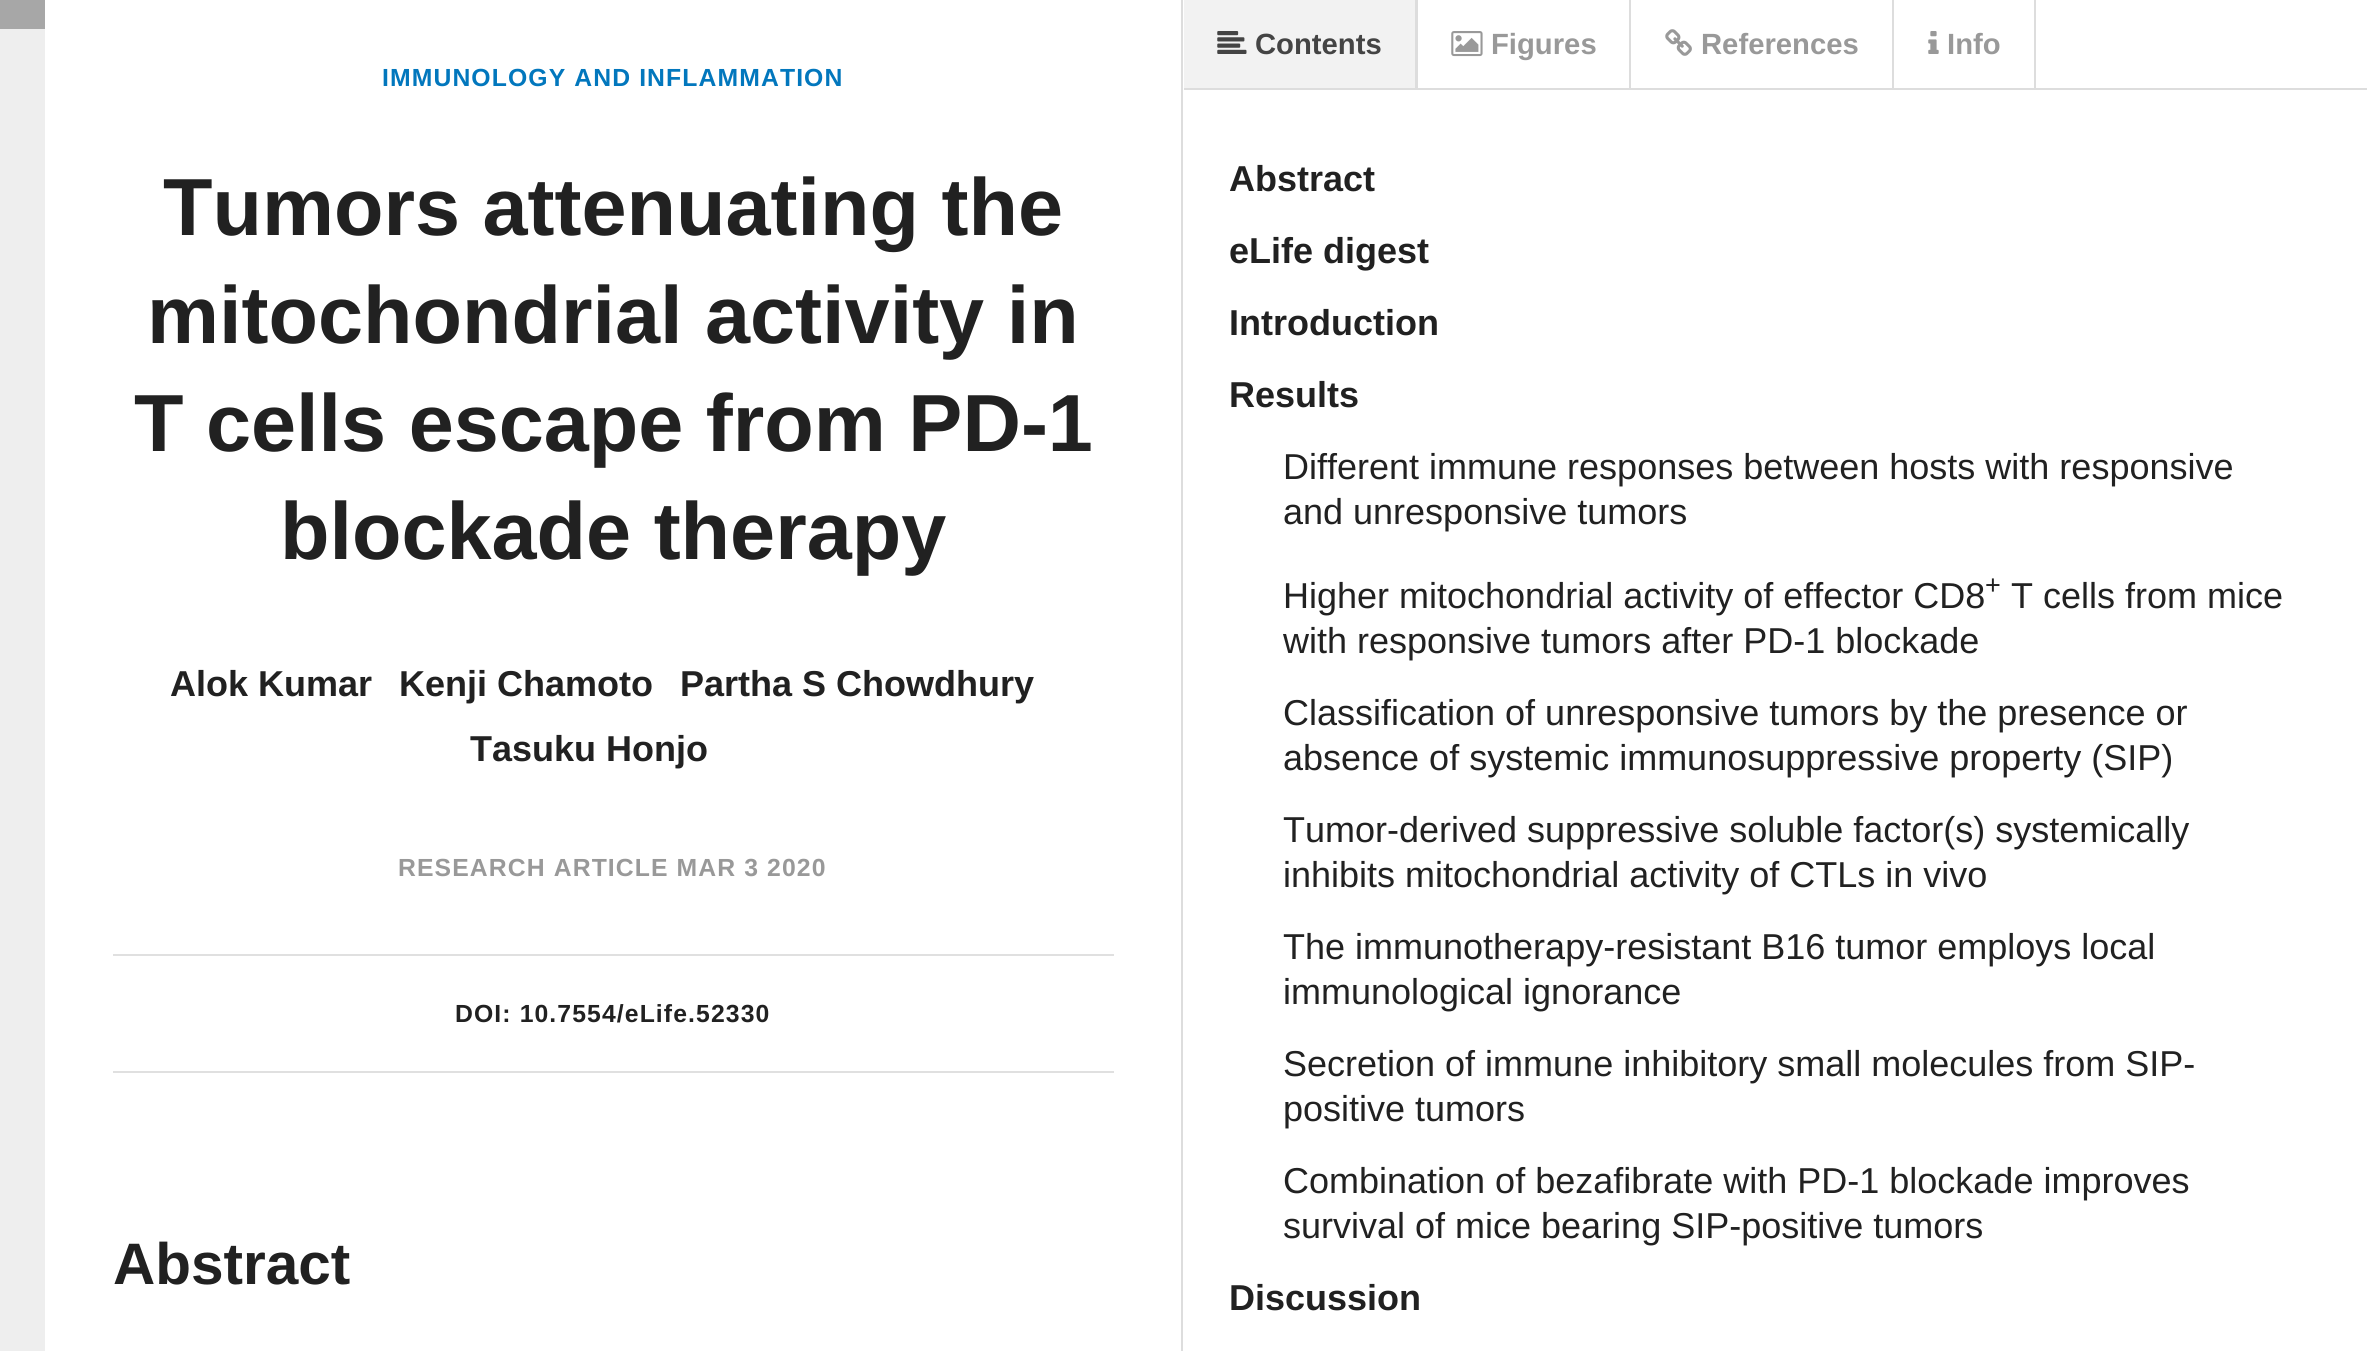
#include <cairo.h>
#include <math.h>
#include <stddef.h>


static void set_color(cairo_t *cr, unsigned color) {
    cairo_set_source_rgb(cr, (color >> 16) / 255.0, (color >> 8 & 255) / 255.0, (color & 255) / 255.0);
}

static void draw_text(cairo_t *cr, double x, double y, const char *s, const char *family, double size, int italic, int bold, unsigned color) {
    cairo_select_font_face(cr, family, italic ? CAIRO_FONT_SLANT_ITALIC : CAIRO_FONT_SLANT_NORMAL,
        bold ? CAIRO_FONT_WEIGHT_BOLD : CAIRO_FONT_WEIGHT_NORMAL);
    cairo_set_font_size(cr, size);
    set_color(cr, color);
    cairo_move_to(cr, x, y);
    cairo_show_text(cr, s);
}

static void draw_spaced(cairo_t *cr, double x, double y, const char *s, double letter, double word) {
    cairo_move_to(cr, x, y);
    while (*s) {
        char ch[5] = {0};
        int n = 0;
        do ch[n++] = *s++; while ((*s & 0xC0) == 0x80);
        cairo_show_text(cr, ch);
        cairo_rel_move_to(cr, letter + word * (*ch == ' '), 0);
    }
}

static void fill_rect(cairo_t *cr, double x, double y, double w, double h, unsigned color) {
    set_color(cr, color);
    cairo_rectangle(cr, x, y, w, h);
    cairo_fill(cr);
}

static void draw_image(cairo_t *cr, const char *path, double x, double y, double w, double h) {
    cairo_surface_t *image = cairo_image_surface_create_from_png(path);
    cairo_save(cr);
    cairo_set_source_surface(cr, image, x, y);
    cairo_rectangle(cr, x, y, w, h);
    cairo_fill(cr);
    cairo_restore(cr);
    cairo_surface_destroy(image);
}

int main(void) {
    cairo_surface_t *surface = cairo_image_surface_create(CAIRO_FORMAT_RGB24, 2367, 1351);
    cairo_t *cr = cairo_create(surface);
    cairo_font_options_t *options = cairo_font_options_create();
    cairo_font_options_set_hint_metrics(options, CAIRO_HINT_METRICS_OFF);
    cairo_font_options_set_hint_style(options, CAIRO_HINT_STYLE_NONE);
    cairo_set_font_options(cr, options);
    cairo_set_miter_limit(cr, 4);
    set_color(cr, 0xFFFFFF);
    cairo_paint(cr);
    fill_rect(cr, 1181, 0, 2, 1351, 0xDDDDDD);
    fill_rect(cr, 0, 29, 45, 1322, 0xEEEEEE);
    fill_rect(cr, 0, 0, 45, 29, 0xA7A7A7);
    cairo_select_font_face(cr, "Liberation Sans", CAIRO_FONT_SLANT_NORMAL, CAIRO_FONT_WEIGHT_BOLD);
    cairo_set_font_size(cr, 24.75);
    set_color(cr, 0x0277BD);
    draw_spaced(cr, 382, 86, "IMMUNOLOGY AND INFLAMMATION", 1.1, 0);
    draw_text(cr, 163, 235, "Tumors attenuating the", "Liberation Sans", 81, 0, 1, 0x212121);
    draw_text(cr, 147, 343, "mitochondrial activity in", "Liberation Sans", 81, 0, 1, 0x212121);
    draw_text(cr, 134, 451, "T cells escape from PD-1", "Liberation Sans", 81, 0, 1, 0x212121);
    draw_text(cr, 280, 559, "blockade therapy", "Liberation Sans", 81, 0, 1, 0x212121);
    draw_text(cr, 170, 696, "Alok Kumar", "Liberation Sans", 36, 0, 1, 0x212121);
    draw_text(cr, 399, 696, "Kenji Chamoto", "Liberation Sans", 36, 0, 1, 0x212121);
    draw_text(cr, 680, 696, "Partha S Chowdhury", "Liberation Sans", 36, 0, 1, 0x212121);
    draw_text(cr, 470, 761, "Tasuku Honjo", "Liberation Sans", 36, 0, 1, 0x212121);
    cairo_set_font_size(cr, 24.75);
    set_color(cr, 0x999999);
    draw_spaced(cr, 398, 876, "RESEARCH ARTICLE MAR 3 2020", 1.1, 0);
    fill_rect(cr, 113, 954, 1001, 2, 0xE0E0E0);
    fill_rect(cr, 113, 1071, 1001, 2, 0xE0E0E0);
    set_color(cr, 0x212121);
    draw_spaced(cr, 455, 1022, "DOI: 10.7554/eLife.52330", 1.1, 0);
    draw_text(cr, 113, 1284, "Abstract", "Liberation Sans", 58.5, 0, 1, 0x212121);
    fill_rect(cr, 1184, 88, 1183, 2, 0xDDDDDD);
    fill_rect(cr, 1184, 0, 231, 88, 0xF2F2F2);
    cairo_save(cr);
    cairo_rectangle(cr, 1184, 0, 1183, 88);
    cairo_clip(cr);
    set_color(cr, 0xDDDDDD);
    cairo_new_path(cr);
    cairo_move_to(cr, 1418, 0);
    cairo_line_to(cr, 1418, 97);
    cairo_line_to(cr, 1415, 90);
    cairo_line_to(cr, 1415, 0);
    cairo_close_path(cr);
    cairo_fill(cr);
    cairo_restore(cr);
    draw_image(cr, "assets/img1.png", 1217, 31, 30, 23);
    draw_text(cr, 1255, 54, "Contents", "Liberation Sans", 29.25, 0, 1, 0x444444);
    fill_rect(cr, 1629, 0, 2, 88, 0xDDDDDD);
    draw_image(cr, "assets/img2.png", 1451, 31, 32, 26);
    draw_text(cr, 1491, 54, "Figures", "Liberation Sans", 29.25, 0, 1, 0x999999);
    fill_rect(cr, 1892, 0, 2, 88, 0xDDDDDD);
    draw_image(cr, "assets/img3.png", 1665, 29, 27, 27);
    draw_text(cr, 1701, 54, "References", "Liberation Sans", 29.25, 0, 1, 0x999999);
    fill_rect(cr, 2034, 0, 2, 88, 0xDDDDDD);
    draw_image(cr, "assets/img4.png", 1928, 31, 11, 23);
    draw_text(cr, 1947, 54, "Info", "Liberation Sans", 29.25, 0, 1, 0x999999);
    draw_text(cr, 1229, 191, "Abstract", "Liberation Sans", 36, 0, 1, 0x212121);
    draw_text(cr, 1229, 263, "eLife digest", "Liberation Sans", 36, 0, 1, 0x212121);
    draw_text(cr, 1229, 335, "Introduction", "Liberation Sans", 36, 0, 1, 0x212121);
    draw_text(cr, 1229, 407, "Results", "Liberation Sans", 36, 0, 1, 0x212121);
    draw_text(cr, 1283, 479, "Different immune responses between hosts with responsive", "Liberation Sans", 36, 0, 0, 0x212121);
    draw_text(cr, 1283, 524, "and unresponsive tumors", "Liberation Sans", 36, 0, 0, 0x212121);
    draw_text(cr, 1283, 608, "Higher mitochondrial activity of effector CD8", "Liberation Sans", 36, 0, 0, 0x212121);
    draw_text(cr, 1985, 594, "+", "Liberation Sans", 27, 0, 0, 0x212121);
    draw_text(cr, 2011, 608, "T cells from mice", "Liberation Sans", 36, 0, 0, 0x212121);
    draw_text(cr, 1283, 653, "with responsive tumors after PD-1 blockade", "Liberation Sans", 36, 0, 0, 0x212121);
    draw_text(cr, 1283, 725, "Classification of unresponsive tumors by the presence or", "Liberation Sans", 36, 0, 0, 0x212121);
    draw_text(cr, 1283, 770, "absence of systemic immunosuppressive property (SIP)", "Liberation Sans", 36, 0, 0, 0x212121);
    draw_text(cr, 1283, 842, "Tumor-derived suppressive soluble factor(s) systemically", "Liberation Sans", 36, 0, 0, 0x212121);
    draw_text(cr, 1283, 887, "inhibits mitochondrial activity of CTLs in vivo", "Liberation Sans", 36, 0, 0, 0x212121);
    draw_text(cr, 1283, 959, "The immunotherapy-resistant B16 tumor employs local", "Liberation Sans", 36, 0, 0, 0x212121);
    draw_text(cr, 1283, 1004, "immunological ignorance", "Liberation Sans", 36, 0, 0, 0x212121);
    draw_text(cr, 1283, 1076, "Secretion of immune inhibitory small molecules from SIP-", "Liberation Sans", 36, 0, 0, 0x212121);
    draw_text(cr, 1283, 1121, "positive tumors", "Liberation Sans", 36, 0, 0, 0x212121);
    draw_text(cr, 1283, 1193, "Combination of bezafibrate with PD-1 blockade improves", "Liberation Sans", 36, 0, 0, 0x212121);
    draw_text(cr, 1283, 1238, "survival of mice bearing SIP-positive tumors", "Liberation Sans", 36, 0, 0, 0x212121);
    draw_text(cr, 1229, 1310, "Discussion", "Liberation Sans", 36, 0, 1, 0x212121);
    cairo_surface_write_to_png(surface, "output.png");
    cairo_font_options_destroy(options);
    cairo_destroy(cr);
    cairo_surface_destroy(surface);
    return 0;
}
